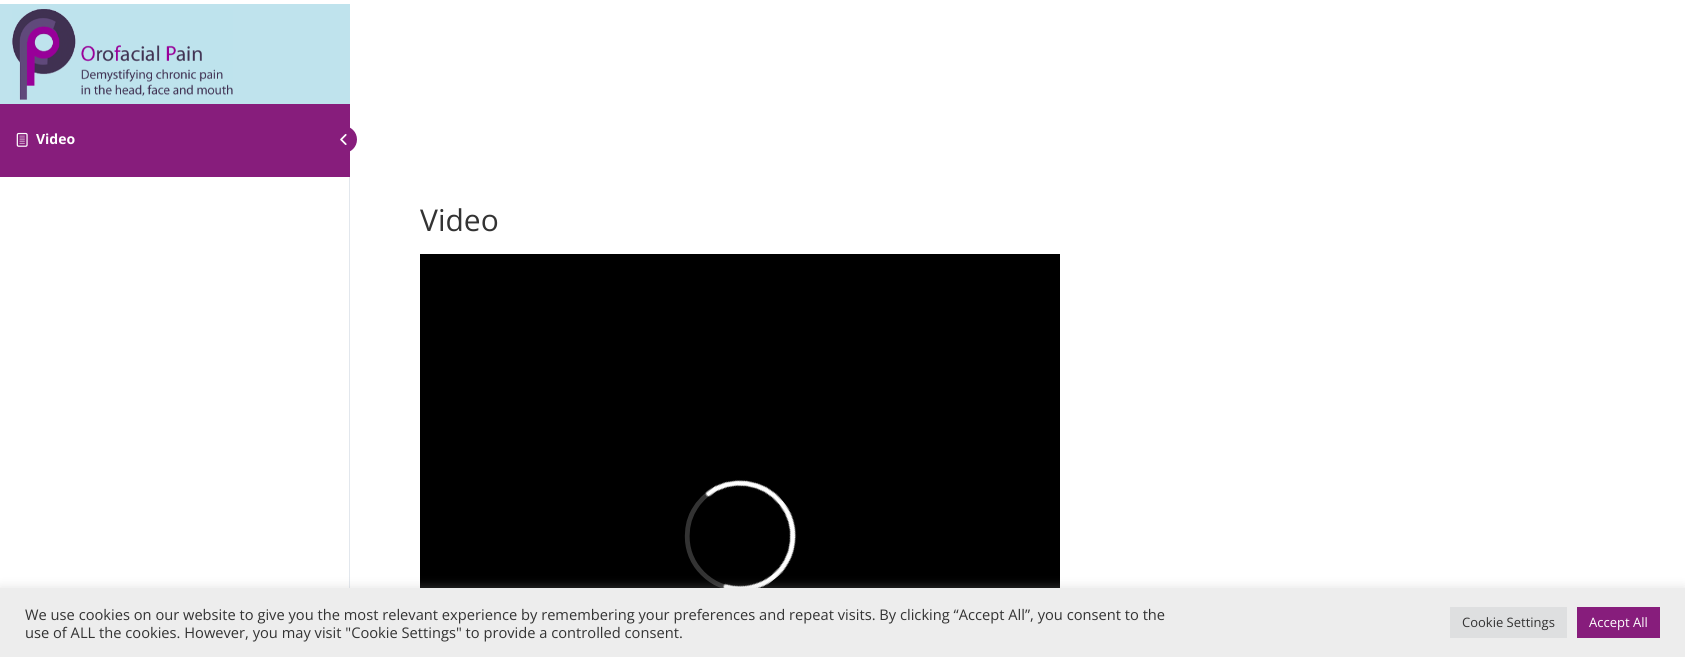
#include <cairo.h>
#include <math.h>
#include <stddef.h>


static void set_color(cairo_t *cr, unsigned color) {
    cairo_set_source_rgb(cr, (color >> 16) / 255.0, (color >> 8 & 255) / 255.0, (color & 255) / 255.0);
}

static void draw_text(cairo_t *cr, double x, double y, const char *s, const char *family, double size, int italic, int bold, unsigned color) {
    cairo_select_font_face(cr, family, italic ? CAIRO_FONT_SLANT_ITALIC : CAIRO_FONT_SLANT_NORMAL,
        bold ? CAIRO_FONT_WEIGHT_BOLD : CAIRO_FONT_WEIGHT_NORMAL);
    cairo_set_font_size(cr, size);
    set_color(cr, color);
    cairo_move_to(cr, x, y);
    cairo_show_text(cr, s);
}

static void fill_rect(cairo_t *cr, double x, double y, double w, double h, unsigned color) {
    set_color(cr, color);
    cairo_rectangle(cr, x, y, w, h);
    cairo_fill(cr);
}

static void rounded_rect(cairo_t *cr, double x, double y, double w, double h, double r) {
    cairo_new_sub_path(cr);
    cairo_arc(cr, x + w - r, y + h - r, r, 0, M_PI / 2);
    cairo_arc(cr, x + r, y + h - r, r, M_PI / 2, M_PI);
    cairo_arc(cr, x + r, y + r, r, M_PI, 1.5 * M_PI);
    cairo_arc(cr, x + w - r, y + r, r, 1.5 * M_PI, 2 * M_PI);
    cairo_close_path(cr);
}

static void draw_shadow(cairo_t *cr, double x, double y, double w, double h, double r, double blur, double alpha) {
    cairo_push_group_with_content(cr, CAIRO_CONTENT_ALPHA);
    cairo_set_operator(cr, CAIRO_OPERATOR_SOURCE);
    for (int i = 15; i >= -15 && fmin(w, h) + blur * i / 3 > 0; i -= 2) {
        double e = blur * i / 6;
        cairo_set_source_rgba(cr, 0, 0, 0, alpha * erfc((i - 1) / 8.5) / 2);
        rounded_rect(cr, x - e, y - e, w + 2 * e, h + 2 * e, fmax(0, fmin(r + e + blur * .6, fmin(w, h) / 2 + e)));
        cairo_fill(cr);
    }
    cairo_pattern_t *soft = cairo_pop_group(cr);
    cairo_mask(cr, soft);
    cairo_pattern_destroy(soft);
}

static void draw_image(cairo_t *cr, const char *path, double x, double y, double w, double h) {
    cairo_surface_t *image = cairo_image_surface_create_from_png(path);
    cairo_save(cr);
    cairo_set_source_surface(cr, image, x, y);
    cairo_rectangle(cr, x, y, w, h);
    cairo_fill(cr);
    cairo_restore(cr);
    cairo_surface_destroy(image);
}

int main(void) {
    cairo_surface_t *surface = cairo_image_surface_create(CAIRO_FORMAT_RGB24, 1685, 657);
    cairo_t *cr = cairo_create(surface);
    cairo_font_options_t *options = cairo_font_options_create();
    cairo_font_options_set_hint_metrics(options, CAIRO_HINT_METRICS_OFF);
    cairo_font_options_set_hint_style(options, CAIRO_HINT_STYLE_NONE);
    cairo_set_font_options(cr, options);
    cairo_set_miter_limit(cr, 4);
    set_color(cr, 0xFFFFFF);
    cairo_paint(cr);
    fill_rect(cr, 349, 177, 1, 411, 0xE2E7ED);
    fill_rect(cr, 0, 104, 350, 73, 0x871D7C);
    draw_image(cr, "assets/img1.png", 16, 132, 12, 15);
    draw_text(cr, 36, 144, "Video", "Open Sans", 14, 0, 1, 0xFFFFFF);
    set_color(cr, 0x871D7C);
    cairo_new_path(cr);
    cairo_arc(cr, 343.5, 139.5, 13.5, 0, 2 * M_PI);
    cairo_fill(cr);
    draw_image(cr, "assets/img2.png", 340, 134, 7, 11);
    fill_rect(cr, 0, 4, 350, 100, 0xBFE3ED);
    draw_image(cr, "assets/img3.png", 12, 9, 221, 91);
    draw_text(cr, 420, 231, "Video", "Open Sans", 30, 0, 0, 0x333333);
    draw_image(cr, "assets/img4.png", 420, 254, 640, 334);
    set_color(cr, 0xACABAB);
    draw_shadow(cr, 0, 587, 1685, 69, 0, 5, 0.3);
    fill_rect(cr, 0, 588, 1685, 69, 0xEDEDED);
    draw_text(cr, 25, 620, "We use cookies on our website to give you the most relevant experience by remembering your preferences and repeat visits. By clicking “Accept All”, you consent to the", "Open Sans", 14.67, 0, 0, 0x333333);
    draw_text(cr, 25, 638, "use of ALL the cookies. However, you may visit \"Cookie Settings\" to provide a controlled consent.", "Open Sans", 14.67, 0, 0, 0x333333);
    fill_rect(cr, 1450, 607, 117, 31, 0xDEDFE0);
    draw_text(cr, 1462, 627, "Cookie Settings", "Open Sans", 13, 0, 0, 0x333333);
    fill_rect(cr, 1577, 607, 83, 31, 0x871D7C);
    draw_text(cr, 1589, 627, "Accept All", "Open Sans", 13, 0, 0, 0xFFFFFF);
    cairo_surface_write_to_png(surface, "output.png");
    cairo_font_options_destroy(options);
    cairo_destroy(cr);
    cairo_surface_destroy(surface);
    return 0;
}
